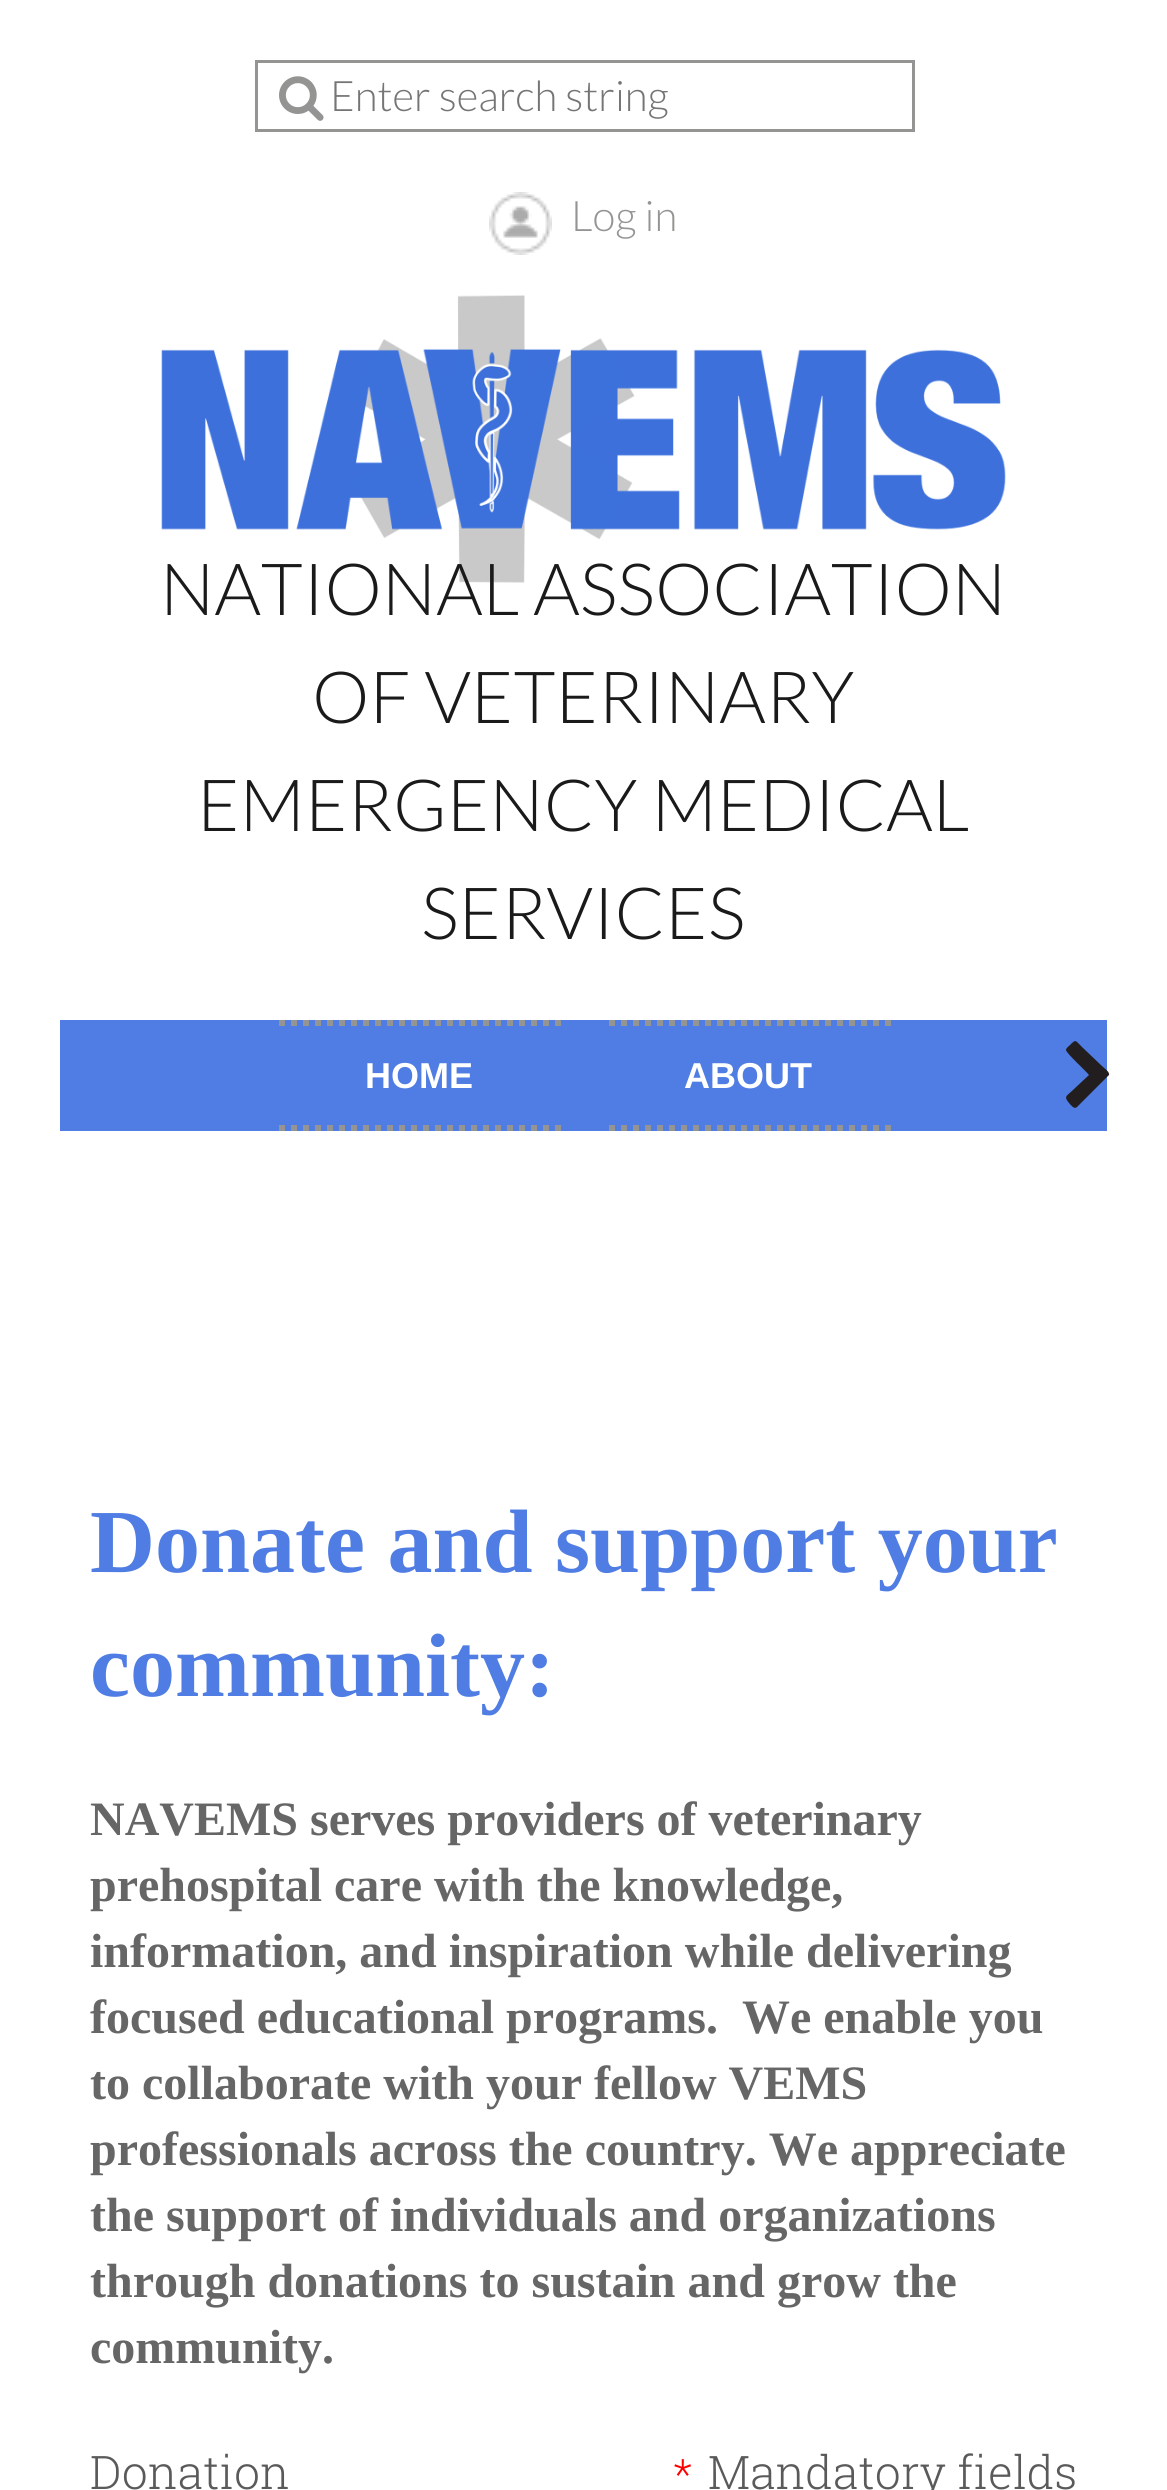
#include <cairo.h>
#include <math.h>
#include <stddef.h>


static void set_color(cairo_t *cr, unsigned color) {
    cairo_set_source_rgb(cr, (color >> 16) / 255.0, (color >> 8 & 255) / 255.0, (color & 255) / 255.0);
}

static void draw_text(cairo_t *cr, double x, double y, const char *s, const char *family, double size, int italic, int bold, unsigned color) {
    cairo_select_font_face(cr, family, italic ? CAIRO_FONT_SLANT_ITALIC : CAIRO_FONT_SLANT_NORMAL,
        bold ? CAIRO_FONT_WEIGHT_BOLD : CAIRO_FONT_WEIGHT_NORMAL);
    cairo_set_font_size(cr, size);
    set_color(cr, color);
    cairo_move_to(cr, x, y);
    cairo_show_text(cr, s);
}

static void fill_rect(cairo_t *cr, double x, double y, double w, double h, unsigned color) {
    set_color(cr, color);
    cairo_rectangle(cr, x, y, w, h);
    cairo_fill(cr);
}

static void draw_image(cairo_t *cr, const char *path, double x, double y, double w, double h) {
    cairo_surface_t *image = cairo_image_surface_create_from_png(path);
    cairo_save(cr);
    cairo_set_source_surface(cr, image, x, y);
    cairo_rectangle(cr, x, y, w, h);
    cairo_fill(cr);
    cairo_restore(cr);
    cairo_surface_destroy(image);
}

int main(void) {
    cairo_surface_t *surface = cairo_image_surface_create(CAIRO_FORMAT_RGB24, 1167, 2490);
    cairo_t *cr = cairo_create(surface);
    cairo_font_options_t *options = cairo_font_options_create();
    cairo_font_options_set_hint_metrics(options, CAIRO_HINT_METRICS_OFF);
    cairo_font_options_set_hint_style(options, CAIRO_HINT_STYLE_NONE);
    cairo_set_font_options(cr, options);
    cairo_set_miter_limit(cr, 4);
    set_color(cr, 0xFFFFFF);
    cairo_paint(cr);
    cairo_rectangle(cr, 256.5, 61.5, 657, 69);
    set_color(cr, 0x949493);
    cairo_set_line_width(cr, 3);
    cairo_stroke(cr);
    draw_image(cr, "assets/img1.png", 279, 76, 45, 45);
    draw_text(cr, 330, 111, "Enter search string", "Lato Light", 42, 0, 0, 0x757575);
    draw_image(cr, "assets/img2.png", 489, 192, 63, 63);
    draw_text(cr, 571, 231, "Log in", "Lato Light", 42, 0, 0, 0x949493);
    draw_image(cr, "assets/img3.png", 161, 295, 845, 288);
    draw_text(cr, 160, 615, "NATIONAL ASSOCIATION", "Lato Light", 72, 0, 0, 0x1A1A1A);
    draw_text(cr, 312, 723, "OF VETERINARY", "Lato Light", 72, 0, 0, 0x1A1A1A);
    draw_text(cr, 197, 831, "EMERGENCY MEDICAL", "Lato Light", 72, 0, 0, 0x1A1A1A);
    draw_text(cr, 421, 939, "SERVICES", "Lato Light", 72, 0, 0, 0x1A1A1A);
    fill_rect(cr, 60, 1020, 1047, 111, 0x507DE3);
    cairo_new_path(cr);
    cairo_move_to(cr, 279, 1023);
    cairo_line_to(cr, 561, 1023);
    set_color(cr, 0x949493);
    cairo_set_line_width(cr, 6);
    cairo_set_dash(cr, (double[]){6, 6}, 2, 0);
    cairo_stroke(cr);
    cairo_new_path(cr);
    cairo_move_to(cr, 279, 1128);
    cairo_line_to(cr, 561, 1128);
    cairo_stroke(cr);
    draw_text(cr, 365, 1088, "HOME", "Liberation Sans", 36, 0, 1, 0xFFFFFF);
    cairo_new_path(cr);
    cairo_move_to(cr, 609, 1023);
    cairo_line_to(cr, 891, 1023);
    set_color(cr, 0x949493);
    cairo_stroke(cr);
    cairo_new_path(cr);
    cairo_move_to(cr, 609, 1128);
    cairo_line_to(cr, 891, 1128);
    cairo_stroke(cr);
    draw_text(cr, 684, 1088, "ABOUT", "Liberation Sans", 36, 0, 1, 0xFFFFFF);
    set_color(cr, 0x221E1F);
    cairo_new_path(cr);
    cairo_move_to(cr, 1108, 1076);
    cairo_line_to(cr, 1077, 1107);
    cairo_curve_to(cr, 1074, 1110, 1070, 1104, 1069, 1103);
    cairo_curve_to(cr, 1063, 1096, 1067, 1096, 1074, 1089);
    cairo_line_to(cr, 1089, 1075);
    cairo_curve_to(cr, 1086, 1071, 1066, 1053, 1066, 1050);
    cairo_curve_to(cr, 1066, 1048, 1069, 1046, 1070, 1045);
    cairo_curve_to(cr, 1076, 1039, 1075, 1040, 1082, 1047);
    cairo_line_to(cr, 1103, 1067);
    cairo_curve_to(cr, 1104, 1068, 1110, 1072, 1109, 1075);
    cairo_close_path(cr);
    cairo_fill(cr);
    draw_text(cr, 90, 1572, "Donate and support your", "Liberation Serif", 90, 0, 1, 0x507DE3);
    draw_text(cr, 90, 1696, "community:", "Liberation Serif", 90, 0, 1, 0x507DE3);
    draw_text(cr, 90, 1835, "NAVEMS serves providers of veterinary", "Liberation Serif", 48, 0, 1, 0x666666);
    draw_text(cr, 90, 1901, "prehospital care with the knowledge,", "Liberation Serif", 48, 0, 1, 0x666666);
    draw_text(cr, 90, 1967, "information, and inspiration while delivering", "Liberation Serif", 48, 0, 1, 0x666666);
    draw_text(cr, 90, 2033, "focused educational programs.  We enable you", "Liberation Serif", 48, 0, 1, 0x666666);
    draw_text(cr, 90, 2099, "to collaborate with your fellow VEMS", "Liberation Serif", 48, 0, 1, 0x666666);
    draw_text(cr, 90, 2165, "professionals across the country. We appreciate", "Liberation Serif", 48, 0, 1, 0x666666);
    draw_text(cr, 90, 2231, "the support of individuals and organizations", "Liberation Serif", 48, 0, 1, 0x666666);
    draw_text(cr, 90, 2297, "through donations to sustain and grow the", "Liberation Serif", 48, 0, 1, 0x666666);
    draw_text(cr, 90, 2363, "community.", "Liberation Serif", 48, 0, 1, 0x666666);
    draw_text(cr, 90, 2489, "Donation", "Roboto Slab Light", 46.25, 0, 0, 0x5A5A5A);
    draw_text(cr, 673, 2489, "*", "Roboto Slab Light", 42, 0, 0, 0xFF0000);
    draw_text(cr, 708, 2489, "Mandatory fields", "Roboto Slab Light", 46.25, 0, 0, 0x5A5A5A);
    cairo_surface_write_to_png(surface, "output.png");
    cairo_font_options_destroy(options);
    cairo_destroy(cr);
    cairo_surface_destroy(surface);
    return 0;
}
